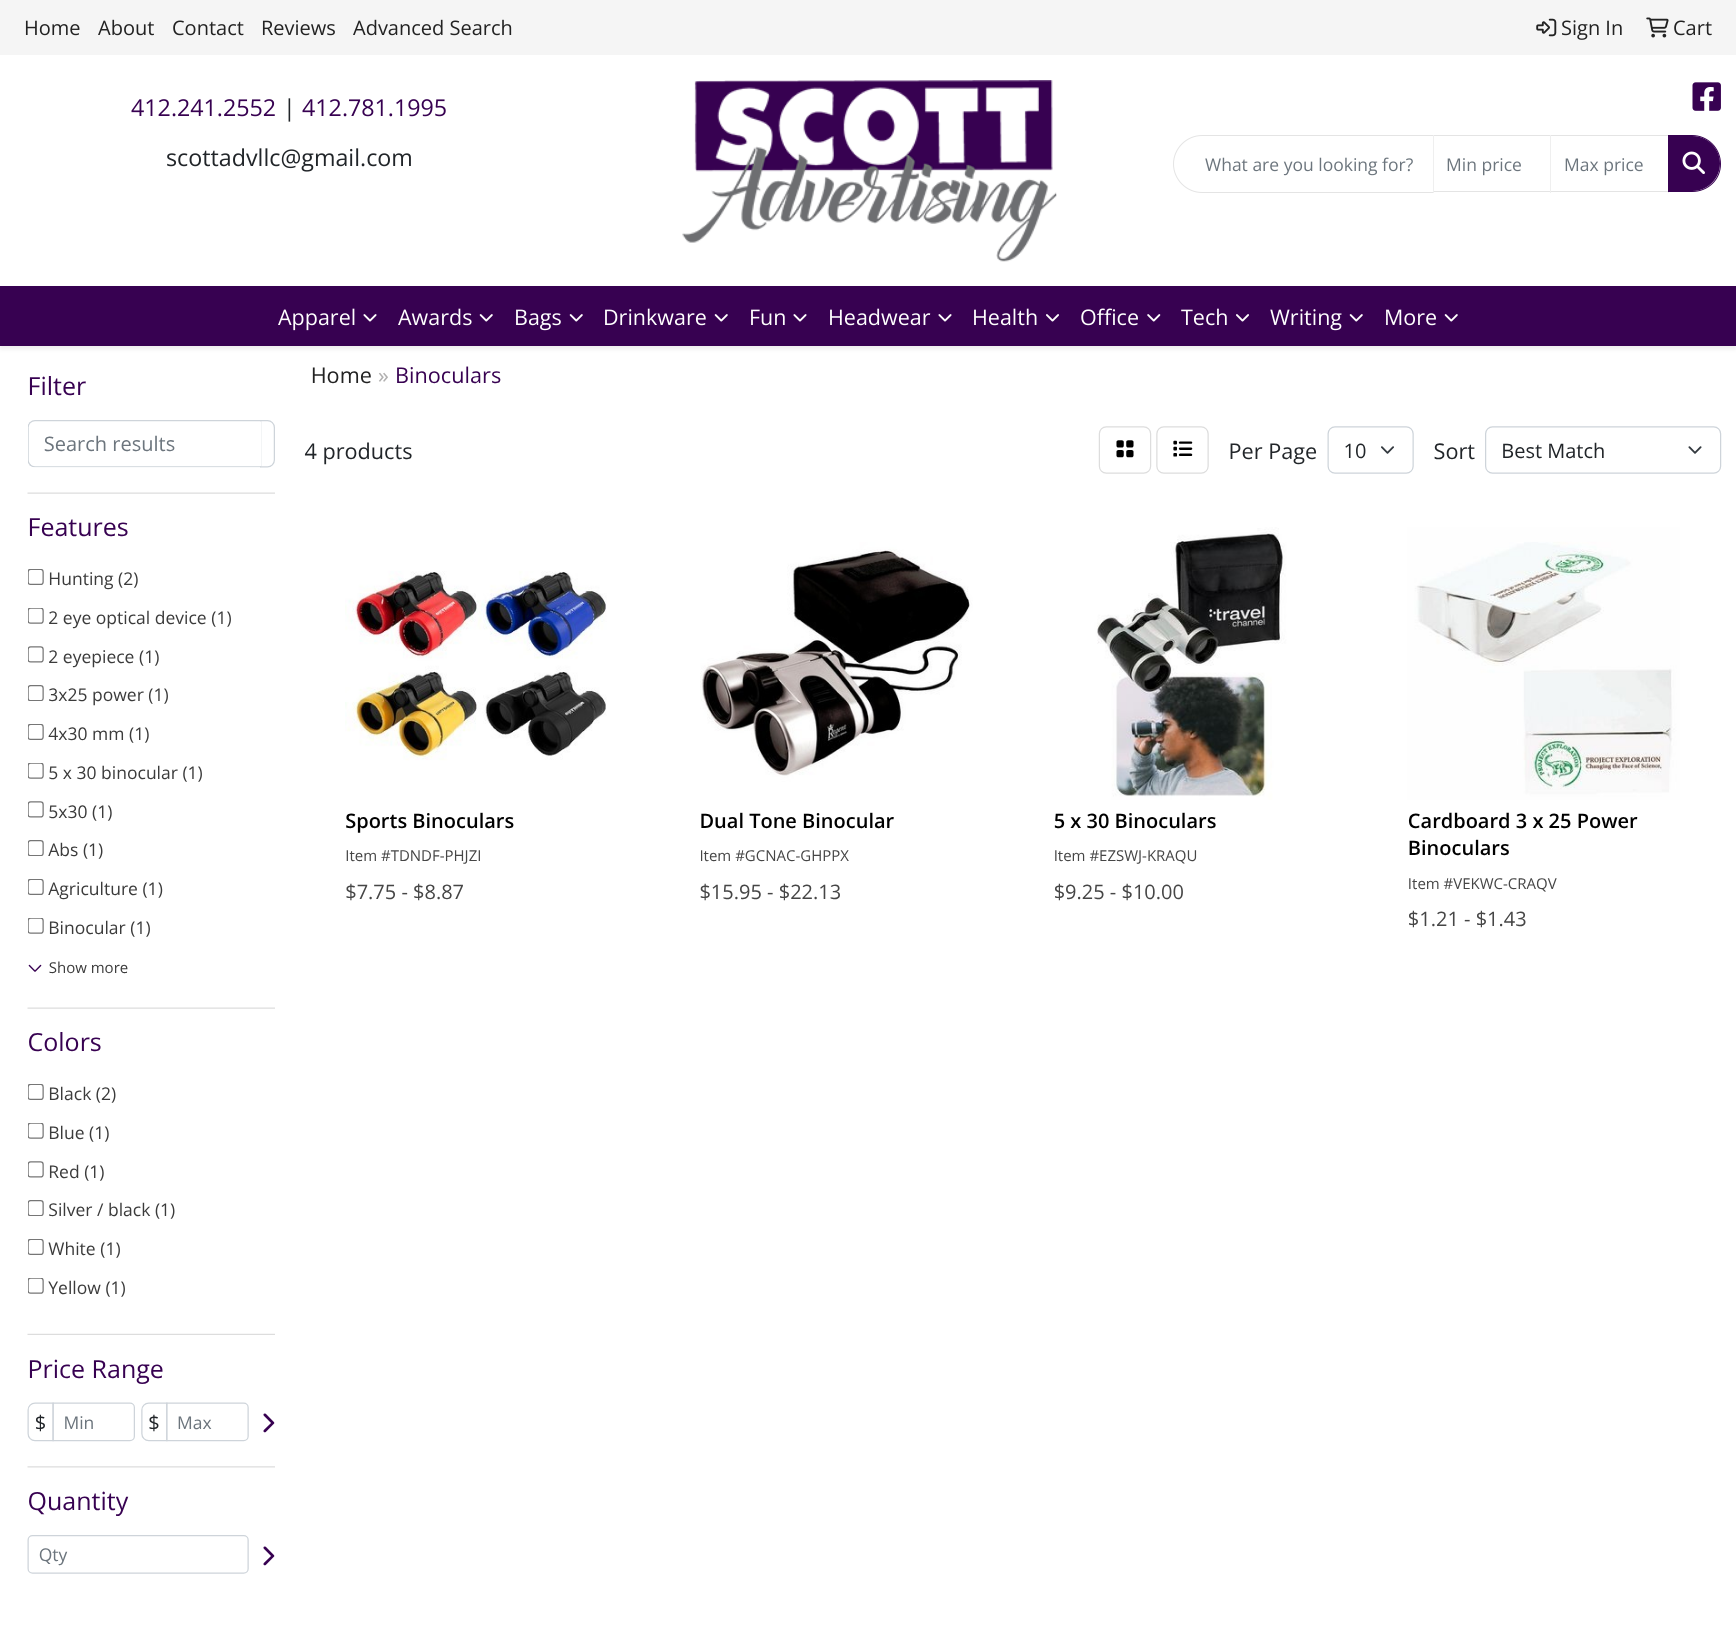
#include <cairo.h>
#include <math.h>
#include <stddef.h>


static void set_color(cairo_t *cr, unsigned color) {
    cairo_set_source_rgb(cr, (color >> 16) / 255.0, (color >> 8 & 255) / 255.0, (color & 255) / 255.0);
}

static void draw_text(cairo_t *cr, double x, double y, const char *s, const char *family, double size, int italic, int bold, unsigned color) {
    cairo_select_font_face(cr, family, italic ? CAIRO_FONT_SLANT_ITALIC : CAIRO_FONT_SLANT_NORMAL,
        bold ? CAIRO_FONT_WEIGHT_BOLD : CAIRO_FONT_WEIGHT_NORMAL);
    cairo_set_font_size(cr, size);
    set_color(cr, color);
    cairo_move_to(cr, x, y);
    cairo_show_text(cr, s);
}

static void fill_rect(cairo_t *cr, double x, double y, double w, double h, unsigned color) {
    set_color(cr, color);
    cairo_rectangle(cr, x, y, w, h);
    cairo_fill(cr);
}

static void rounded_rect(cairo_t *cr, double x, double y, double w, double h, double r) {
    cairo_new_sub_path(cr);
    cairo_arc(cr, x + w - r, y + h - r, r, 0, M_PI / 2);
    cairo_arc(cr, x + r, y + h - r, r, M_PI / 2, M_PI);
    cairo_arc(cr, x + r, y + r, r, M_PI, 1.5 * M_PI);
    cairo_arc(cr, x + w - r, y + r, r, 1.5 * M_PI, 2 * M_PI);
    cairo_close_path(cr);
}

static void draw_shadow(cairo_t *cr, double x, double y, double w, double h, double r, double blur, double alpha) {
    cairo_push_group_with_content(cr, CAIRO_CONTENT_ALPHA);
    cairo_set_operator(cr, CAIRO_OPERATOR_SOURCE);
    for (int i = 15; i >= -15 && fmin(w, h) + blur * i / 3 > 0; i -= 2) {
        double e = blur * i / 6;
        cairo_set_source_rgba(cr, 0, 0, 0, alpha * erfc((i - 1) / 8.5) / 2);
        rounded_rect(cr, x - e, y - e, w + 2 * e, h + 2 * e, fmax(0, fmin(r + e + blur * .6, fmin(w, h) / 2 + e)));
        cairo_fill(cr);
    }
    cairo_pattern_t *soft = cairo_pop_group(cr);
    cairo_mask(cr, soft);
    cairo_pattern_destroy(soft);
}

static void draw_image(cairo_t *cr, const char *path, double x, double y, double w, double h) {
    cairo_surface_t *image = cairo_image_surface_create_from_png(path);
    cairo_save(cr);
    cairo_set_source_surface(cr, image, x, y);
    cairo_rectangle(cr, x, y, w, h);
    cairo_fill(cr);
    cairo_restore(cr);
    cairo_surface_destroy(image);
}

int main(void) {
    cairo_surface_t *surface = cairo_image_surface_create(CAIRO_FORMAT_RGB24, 1736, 1626);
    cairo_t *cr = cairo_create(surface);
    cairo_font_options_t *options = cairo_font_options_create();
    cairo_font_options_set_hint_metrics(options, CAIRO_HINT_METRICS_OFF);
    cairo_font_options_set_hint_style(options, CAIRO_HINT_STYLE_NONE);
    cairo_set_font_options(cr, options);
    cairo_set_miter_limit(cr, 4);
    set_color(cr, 0xFFFFFF);
    cairo_paint(cr);
    fill_rect(cr, 0, 0, 1736, 55, 0xF5F5F5);
    draw_text(cr, 24, 35, "Home", "Open Sans", 20, 0, 0, 0x222222);
    draw_text(cr, 98, 35, "About", "Open Sans", 20, 0, 0, 0x222222);
    draw_text(cr, 172, 35, "Contact", "Open Sans", 20, 0, 0, 0x222222);
    draw_text(cr, 261, 35, "Reviews", "Open Sans", 20, 0, 0, 0x222222);
    draw_text(cr, 353, 35, "Advanced Search", "Open Sans", 20, 0, 0, 0x222222);
    draw_image(cr, "assets/img1.png", 1536, 18, 21, 19);
    draw_text(cr, 1561, 35, "Sign In", "Open Sans", 20, 0, 0, 0x222222);
    draw_image(cr, "assets/img2.png", 1646, 17, 23, 21);
    draw_text(cr, 1673, 35, "Cart", "Open Sans", 20, 0, 0, 0x222222);
    draw_text(cr, 131, 116, "412.241.2552", "Open Sans", 23.25, 0, 0, 0x370151);
    draw_text(cr, 283, 116, "|", "Open Sans", 23.25, 0, 0, 0x212529);
    draw_text(cr, 302, 116, "412.781.1995", "Open Sans", 23.25, 0, 0, 0x370151);
    draw_text(cr, 166, 166, "scottadvllc@gmail.com", "Open Sans", 23.25, 0, 0, 0x212529);
    draw_image(cr, "assets/img3.png", 682, 80, 375, 182);
    draw_image(cr, "assets/img4.png", 1692, 82, 29, 29);
    cairo_new_path(cr);
    cairo_move_to(cr, 1202, 135.5);
    cairo_line_to(cr, 1433.5, 135.5);
    cairo_line_to(cr, 1433.5, 192.5);
    cairo_line_to(cr, 1202, 192.5);
    cairo_curve_to(cr, 1186.5, 192.5, 1173.5, 179.5, 1173.5, 164);
    cairo_curve_to(cr, 1173.5, 148.5, 1186.5, 135.5, 1202, 135.5);
    cairo_close_path(cr);
    set_color(cr, 0xE4E4E4);
    cairo_set_line_width(cr, 1);
    cairo_stroke(cr);
    draw_text(cr, 1205, 171, "What are you looking for?", "Open Sans", 17.5, 0, 0, 0x6C757D);
    fill_rect(cr, 1433, 135, 236, 1, 0xE4E4E4);
    fill_rect(cr, 1433, 191, 236, 1, 0xE4E4E4);
    fill_rect(cr, 1433, 135, 1, 58, 0xEFEFEF);
    draw_text(cr, 1446, 171, "Min price", "Open Sans", 17.5, 0, 0, 0x6C757D);
    fill_rect(cr, 1668, 192, 1, 1, 0xEFEFEF);
    fill_rect(cr, 1550, 135, 1, 58, 0xEFEFEF);
    draw_text(cr, 1564, 171, "Max price", "Open Sans", 17.5, 0, 0, 0x6C757D);
    set_color(cr, 0x370151);
    cairo_new_path(cr);
    cairo_move_to(cr, 1668, 136);
    cairo_line_to(cr, 1692.5, 136);
    cairo_curve_to(cr, 1707.5, 136, 1720, 148.5, 1720, 163.5);
    cairo_curve_to(cr, 1720, 178.5, 1707.5, 191, 1692.5, 191);
    cairo_line_to(cr, 1668, 191);
    cairo_close_path(cr);
    cairo_fill(cr);
    cairo_set_fill_rule(cr, CAIRO_FILL_RULE_EVEN_ODD);
    cairo_new_path(cr);
    cairo_move_to(cr, 1668, 135);
    cairo_line_to(cr, 1692, 135);
    cairo_curve_to(cr, 1708, 135, 1721, 148, 1721, 164);
    cairo_curve_to(cr, 1721, 180, 1708, 192, 1692, 192);
    cairo_line_to(cr, 1668, 192);
    cairo_close_path(cr);
    cairo_move_to(cr, 1668, 136);
    cairo_line_to(cr, 1692, 136);
    cairo_curve_to(cr, 1708, 136, 1720, 149, 1720, 164);
    cairo_curve_to(cr, 1720, 179, 1708, 191, 1692, 191);
    cairo_line_to(cr, 1668, 191);
    cairo_close_path(cr);
    cairo_fill(cr);
    draw_image(cr, "assets/img5.png", 1682, 151, 23, 23);
    set_color(cr, 0x000000);
    draw_shadow(cr, 0, 289, 1736, 60, 0, 2.5, 0.07);
    fill_rect(cr, 0, 286, 1736, 60, 0x370151);
    draw_text(cr, 278, 325, "Apparel", "Open Sans", 21.5, 0, 0, 0xFFFFFF);
    draw_image(cr, "assets/img6.png", 363, 314, 14, 8);
    draw_text(cr, 398, 325, "Awards", "Open Sans", 21.5, 0, 0, 0xFFFFFF);
    draw_image(cr, "assets/img7.png", 479, 314, 14, 8);
    draw_text(cr, 514, 325, "Bags", "Open Sans", 21.5, 0, 0, 0xFFFFFF);
    draw_image(cr, "assets/img7.png", 569, 314, 14, 8);
    draw_text(cr, 603, 325, "Drinkware", "Open Sans", 21.5, 0, 0, 0xFFFFFF);
    draw_image(cr, "assets/img7.png", 714, 314, 14, 8);
    draw_text(cr, 749, 325, "Fun", "Open Sans", 21.5, 0, 0, 0xFFFFFF);
    draw_image(cr, "assets/img6.png", 793, 314, 14, 8);
    draw_text(cr, 828, 325, "Headwear", "Open Sans", 21.5, 0, 0, 0xFFFFFF);
    draw_image(cr, "assets/img6.png", 938, 314, 14, 8);
    draw_text(cr, 972, 325, "Health", "Open Sans", 21.5, 0, 0, 0xFFFFFF);
    draw_image(cr, "assets/img8.png", 1046, 314, 13, 8);
    draw_text(cr, 1080, 325, "Office", "Open Sans", 21.5, 0, 0, 0xFFFFFF);
    draw_image(cr, "assets/img9.png", 1147, 314, 14, 8);
    draw_text(cr, 1181, 325, "Tech", "Open Sans", 21.5, 0, 0, 0xFFFFFF);
    draw_image(cr, "assets/img8.png", 1236, 314, 13, 8);
    draw_text(cr, 1270, 325, "Writing", "Open Sans", 21.5, 0, 0, 0xFFFFFF);
    draw_image(cr, "assets/img7.png", 1349, 314, 14, 8);
    draw_text(cr, 1384, 325, "More", "Open Sans", 21.5, 0, 0, 0xFFFFFF);
    draw_image(cr, "assets/img7.png", 1444, 314, 14, 8);
    draw_image(cr, "assets/img10.png", 27, 366, 1695, 1208);
    cairo_surface_write_to_png(surface, "output.png");
    cairo_font_options_destroy(options);
    cairo_destroy(cr);
    cairo_surface_destroy(surface);
    return 0;
}
